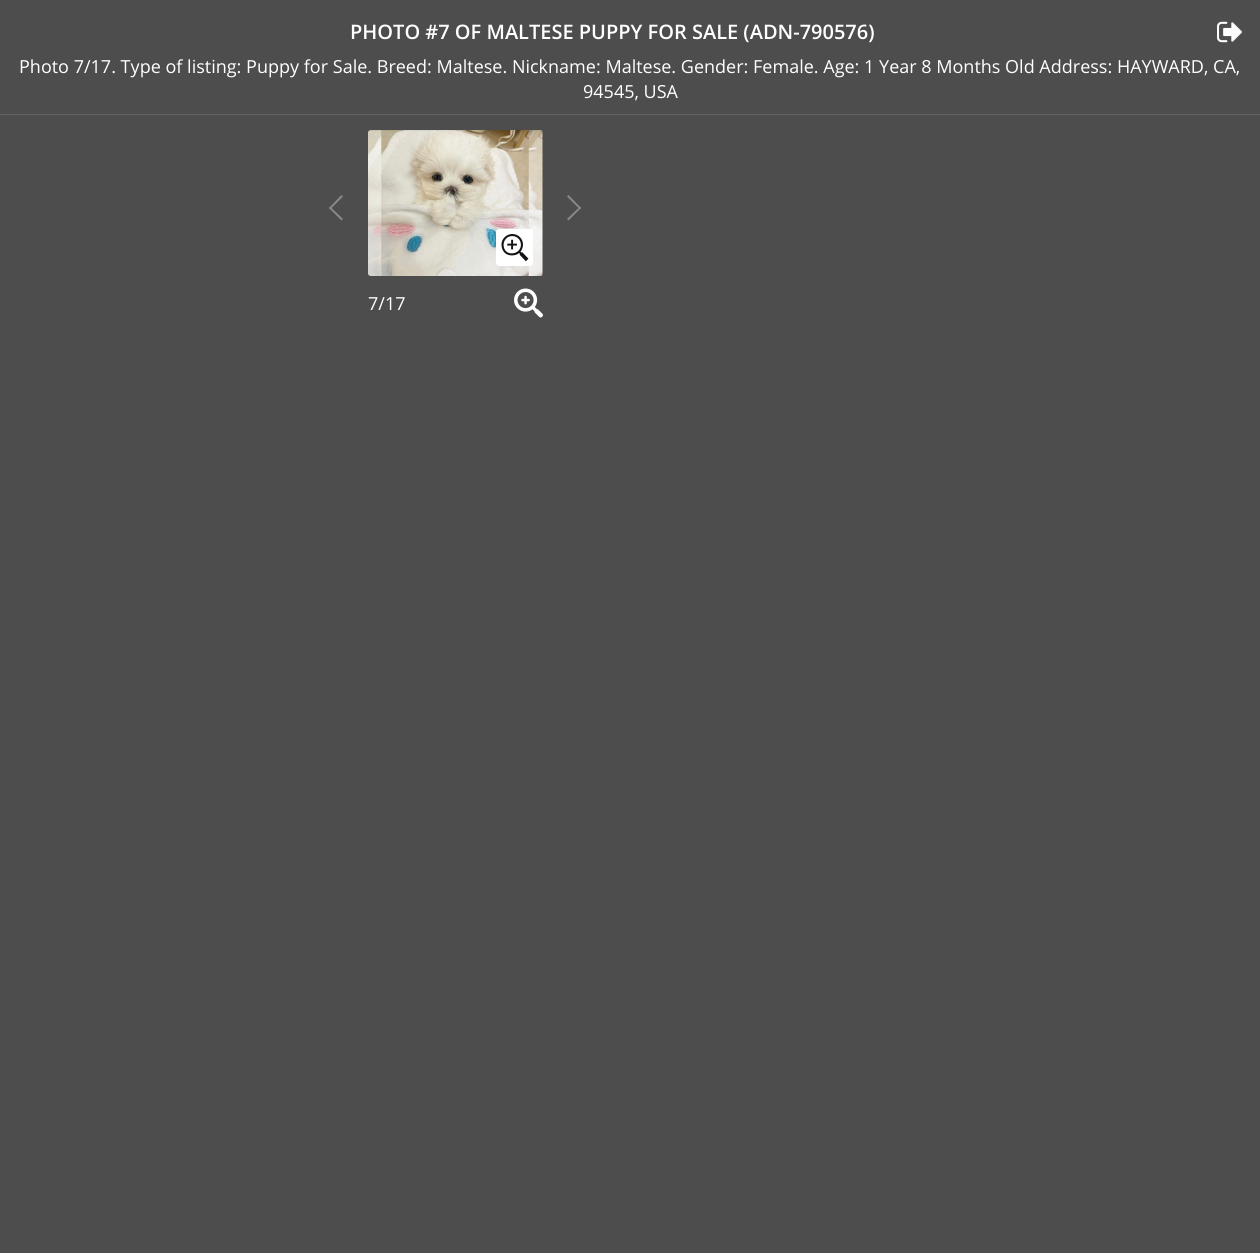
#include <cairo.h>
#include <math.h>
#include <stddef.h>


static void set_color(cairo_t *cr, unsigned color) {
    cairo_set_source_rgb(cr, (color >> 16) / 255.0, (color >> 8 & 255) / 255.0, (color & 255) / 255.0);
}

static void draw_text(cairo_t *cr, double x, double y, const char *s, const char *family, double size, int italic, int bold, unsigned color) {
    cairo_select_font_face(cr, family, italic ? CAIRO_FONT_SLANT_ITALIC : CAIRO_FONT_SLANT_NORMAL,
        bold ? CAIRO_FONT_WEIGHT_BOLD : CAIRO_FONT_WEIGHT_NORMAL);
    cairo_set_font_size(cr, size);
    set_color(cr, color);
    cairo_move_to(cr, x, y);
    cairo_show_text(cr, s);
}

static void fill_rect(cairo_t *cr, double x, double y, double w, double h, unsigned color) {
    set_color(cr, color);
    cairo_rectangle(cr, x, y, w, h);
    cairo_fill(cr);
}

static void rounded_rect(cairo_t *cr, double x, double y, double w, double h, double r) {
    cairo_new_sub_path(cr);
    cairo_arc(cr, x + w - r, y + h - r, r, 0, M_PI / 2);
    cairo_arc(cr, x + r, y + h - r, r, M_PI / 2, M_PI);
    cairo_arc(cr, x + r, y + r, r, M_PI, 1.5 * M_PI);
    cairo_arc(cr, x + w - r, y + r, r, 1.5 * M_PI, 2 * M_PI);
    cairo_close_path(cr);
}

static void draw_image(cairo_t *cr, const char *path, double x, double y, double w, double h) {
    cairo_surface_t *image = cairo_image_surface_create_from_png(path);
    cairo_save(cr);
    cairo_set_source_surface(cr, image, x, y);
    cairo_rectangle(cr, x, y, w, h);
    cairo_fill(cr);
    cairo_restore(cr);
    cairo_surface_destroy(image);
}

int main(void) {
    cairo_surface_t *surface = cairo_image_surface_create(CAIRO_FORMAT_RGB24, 1260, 1253);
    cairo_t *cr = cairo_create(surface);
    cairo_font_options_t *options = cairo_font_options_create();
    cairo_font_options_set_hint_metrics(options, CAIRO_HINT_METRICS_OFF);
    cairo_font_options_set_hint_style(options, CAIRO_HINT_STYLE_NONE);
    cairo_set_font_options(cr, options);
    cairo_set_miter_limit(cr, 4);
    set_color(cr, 0x4D4D4D);
    cairo_paint(cr);
    fill_rect(cr, 0, 114, 1260, 1, 0x636363);
    draw_text(cr, 350, 39, "PHOTO #7 OF MALTESE PUPPY FOR SALE (ADN-790576)", "Open Sans SemiBold", 20, 0, 0, 0xFFFFFF);
    draw_image(cr, "assets/img1.png", 1217, 21, 25, 22);
    draw_text(cr, 19, 73, "Photo 7/17. Type of listing: Puppy for Sale. Breed: Maltese. Nickname: Maltese. Gender: Female. Age: 1 Year 8 Months Old Address: HAYWARD, CA,", "Open Sans", 18, 0, 0, 0xFFFFFF);
    draw_text(cr, 583, 98, "94545, USA", "Open Sans", 18, 0, 0, 0xFFFFFF);
    set_color(cr, 0x898989);
    cairo_new_path(cr);
    cairo_move_to(cr, 341.5, 220.5);
    cairo_line_to(cr, 329, 208);
    cairo_line_to(cr, 330, 206.5);
    cairo_line_to(cr, 343, 219);
    cairo_close_path(cr);
    cairo_fill(cr);
    cairo_new_path(cr);
    cairo_move_to(cr, 330, 209.5);
    cairo_line_to(cr, 329, 208);
    cairo_line_to(cr, 341.5, 195);
    cairo_line_to(cr, 343, 196.5);
    cairo_close_path(cr);
    cairo_fill(cr);
    draw_image(cr, "assets/img2.png", 368, 130, 175, 146);
    set_color(cr, 0xFFFFFF);
    rounded_rect(cr, 496, 229, 37, 37, 3);
    cairo_fill(cr);
    draw_image(cr, "assets/img3.png", 501, 234, 28, 28);
    set_color(cr, 0x898989);
    cairo_new_path(cr);
    cairo_move_to(cr, 568.5, 195);
    cairo_line_to(cr, 581, 208);
    cairo_line_to(cr, 580, 209.5);
    cairo_line_to(cr, 567, 196.5);
    cairo_close_path(cr);
    cairo_fill(cr);
    cairo_new_path(cr);
    cairo_move_to(cr, 580, 206.5);
    cairo_line_to(cr, 581, 208);
    cairo_line_to(cr, 568.5, 220.5);
    cairo_line_to(cr, 567, 219);
    cairo_close_path(cr);
    cairo_fill(cr);
    draw_text(cr, 368, 310, "7/17", "Open Sans", 18, 0, 0, 0xFFFFFF);
    draw_image(cr, "assets/img4.png", 514, 288, 29, 30);
    cairo_surface_write_to_png(surface, "output.png");
    cairo_font_options_destroy(options);
    cairo_destroy(cr);
    cairo_surface_destroy(surface);
    return 0;
}
